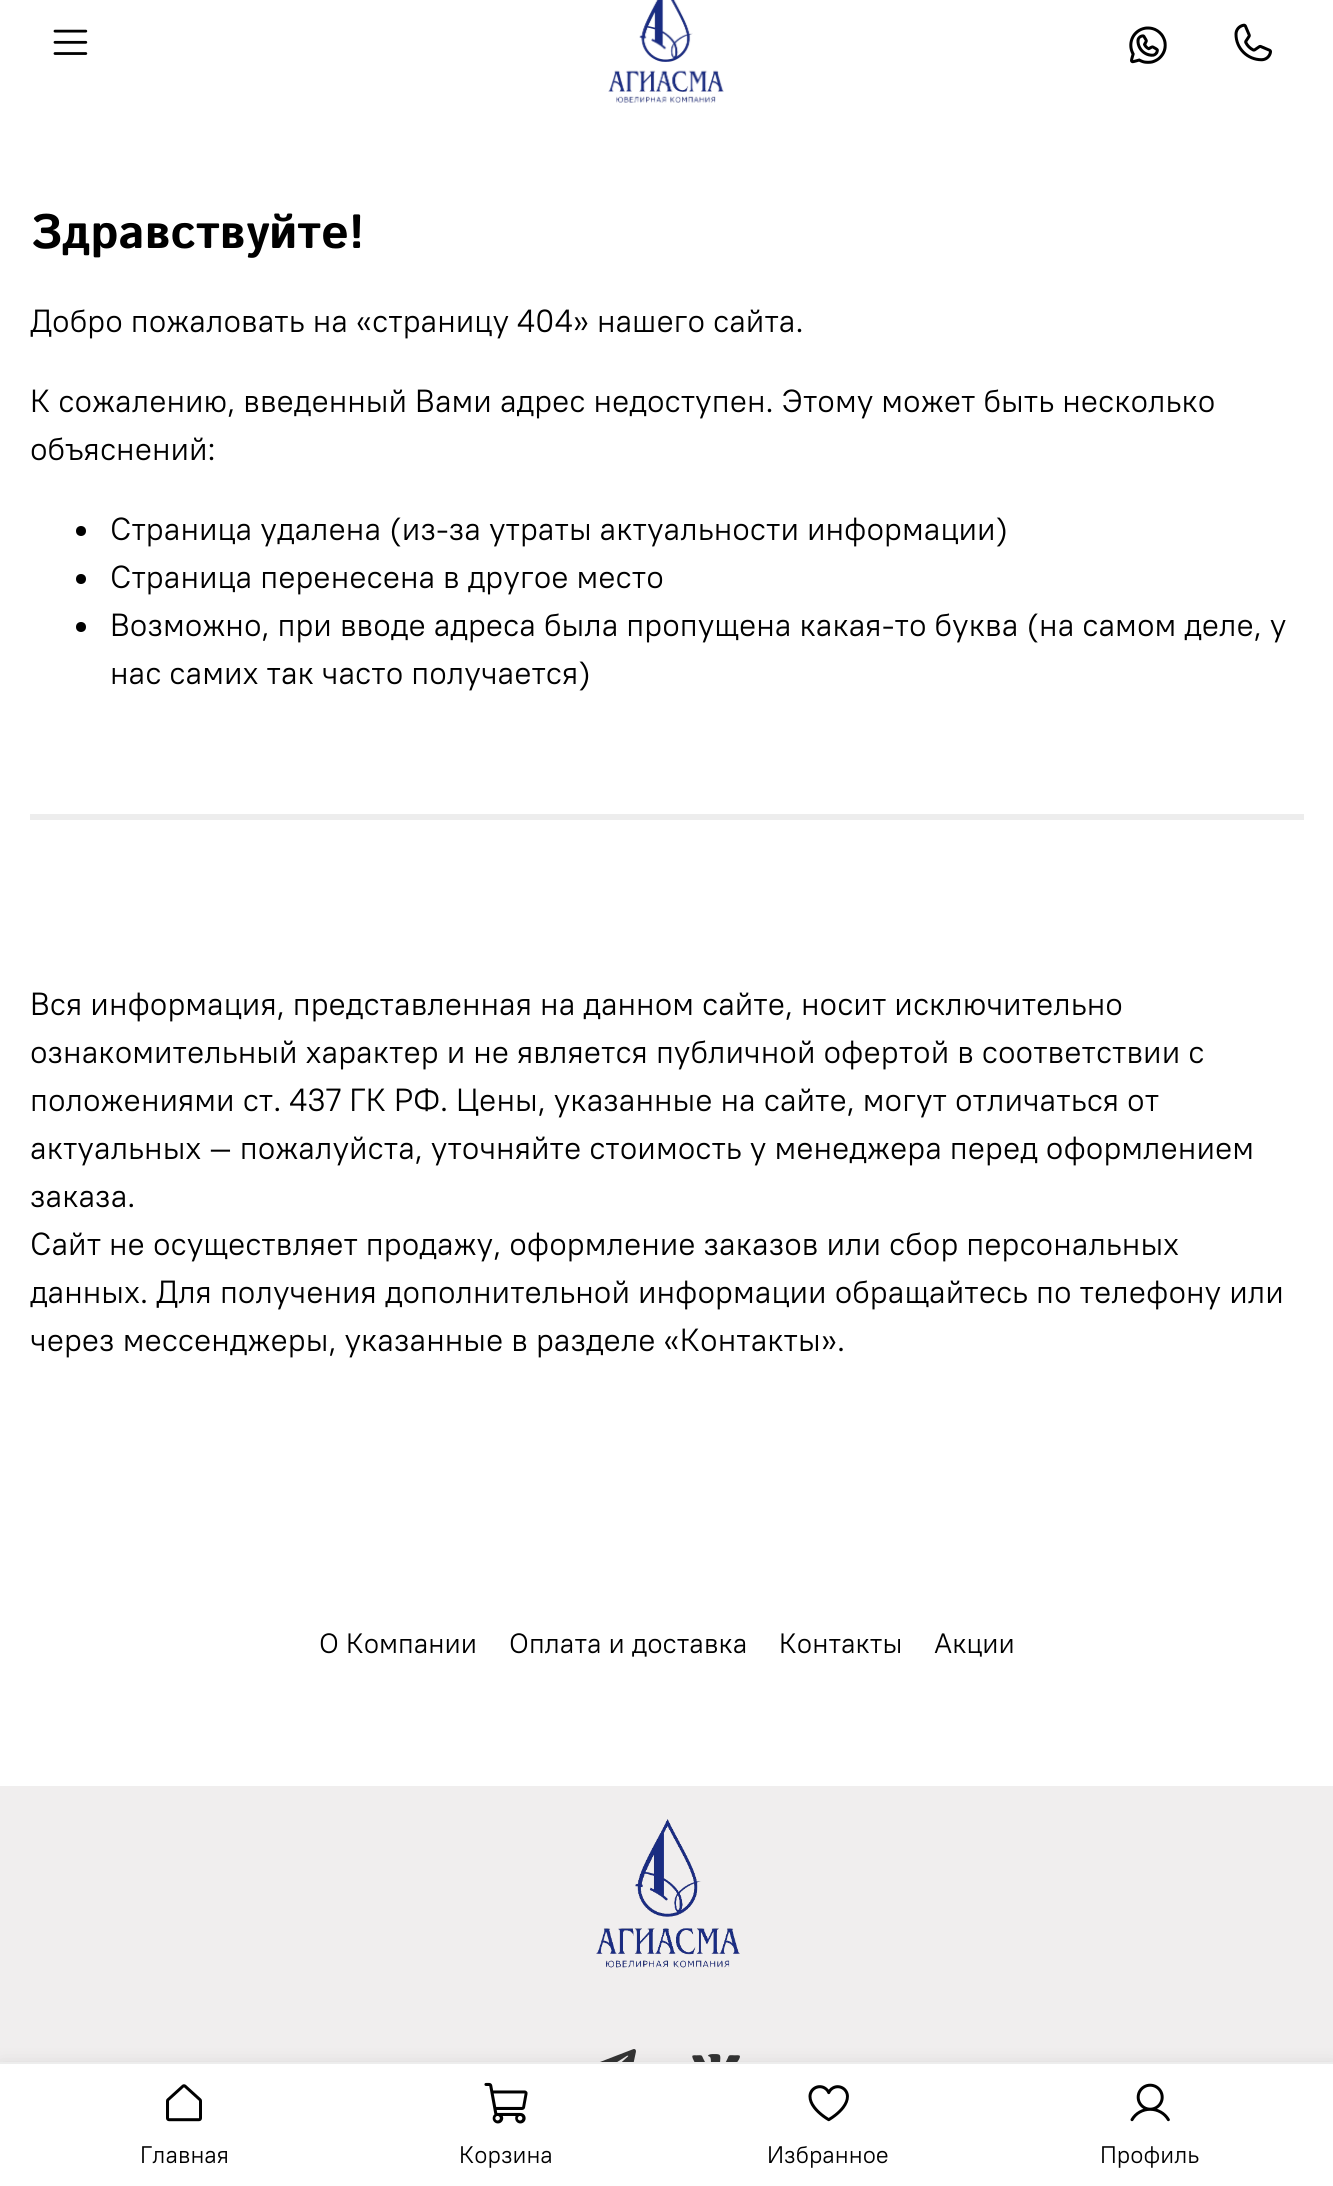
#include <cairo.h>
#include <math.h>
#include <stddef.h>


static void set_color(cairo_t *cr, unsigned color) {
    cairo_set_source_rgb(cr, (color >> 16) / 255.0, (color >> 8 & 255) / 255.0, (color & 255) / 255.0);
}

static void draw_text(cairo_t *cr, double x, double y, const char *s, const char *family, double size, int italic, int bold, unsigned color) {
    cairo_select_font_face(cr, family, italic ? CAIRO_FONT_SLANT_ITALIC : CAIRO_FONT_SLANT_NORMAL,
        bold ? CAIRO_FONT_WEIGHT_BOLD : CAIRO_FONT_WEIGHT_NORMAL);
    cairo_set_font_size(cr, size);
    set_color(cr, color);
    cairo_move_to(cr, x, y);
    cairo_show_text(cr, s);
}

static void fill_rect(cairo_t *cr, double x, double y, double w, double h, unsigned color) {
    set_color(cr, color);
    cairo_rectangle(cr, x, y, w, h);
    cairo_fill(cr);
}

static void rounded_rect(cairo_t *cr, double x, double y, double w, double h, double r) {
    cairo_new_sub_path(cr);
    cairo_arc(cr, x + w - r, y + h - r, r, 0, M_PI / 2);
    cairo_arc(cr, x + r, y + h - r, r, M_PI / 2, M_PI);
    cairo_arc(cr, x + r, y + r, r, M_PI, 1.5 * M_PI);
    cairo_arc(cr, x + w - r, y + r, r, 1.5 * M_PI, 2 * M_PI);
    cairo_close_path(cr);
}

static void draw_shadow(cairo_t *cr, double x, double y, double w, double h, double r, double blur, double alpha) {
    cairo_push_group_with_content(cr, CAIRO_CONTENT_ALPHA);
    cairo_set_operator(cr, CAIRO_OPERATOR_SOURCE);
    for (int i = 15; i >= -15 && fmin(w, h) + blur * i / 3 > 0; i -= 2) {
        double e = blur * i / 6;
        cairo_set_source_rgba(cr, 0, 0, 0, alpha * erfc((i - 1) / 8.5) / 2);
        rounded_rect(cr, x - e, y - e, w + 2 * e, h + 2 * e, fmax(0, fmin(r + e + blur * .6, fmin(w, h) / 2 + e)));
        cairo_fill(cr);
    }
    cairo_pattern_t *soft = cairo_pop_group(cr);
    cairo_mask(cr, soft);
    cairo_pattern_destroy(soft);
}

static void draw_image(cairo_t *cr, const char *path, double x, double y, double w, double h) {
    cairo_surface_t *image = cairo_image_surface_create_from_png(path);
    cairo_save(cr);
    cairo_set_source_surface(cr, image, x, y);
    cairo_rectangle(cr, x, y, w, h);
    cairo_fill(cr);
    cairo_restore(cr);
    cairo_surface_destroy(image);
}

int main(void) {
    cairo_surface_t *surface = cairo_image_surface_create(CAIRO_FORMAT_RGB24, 1333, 2186);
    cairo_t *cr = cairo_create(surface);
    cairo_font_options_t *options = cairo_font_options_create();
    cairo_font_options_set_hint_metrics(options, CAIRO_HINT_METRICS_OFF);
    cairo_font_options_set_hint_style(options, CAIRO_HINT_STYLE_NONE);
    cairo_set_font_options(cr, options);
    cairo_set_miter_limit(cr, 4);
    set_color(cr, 0xFFFFFF);
    cairo_paint(cr);
    draw_image(cr, "assets/img1.png", 53, 29, 35, 26);
    draw_image(cr, "assets/img2.png", 608, 0, 116, 103);
    draw_image(cr, "assets/img3.png", 1129, 26, 38, 38);
    draw_image(cr, "assets/img4.png", 1234, 23, 38, 39);
    draw_text(cr, 30, 248, "Здравствуйте!", "Istok Web", 48, 0, 1, 0x000000);
    draw_text(cr, 30, 332, "Добро пожаловать на «страницу 404» нашего сайта.", "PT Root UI", 32, 0, 0, 0x000000);
    draw_text(cr, 30, 412, "К сожалению, введенный Вами адрес недоступен. Этому может быть несколько", "PT Root UI", 32, 0, 0, 0x000000);
    draw_text(cr, 30, 460, "объяснений:", "PT Root UI", 32, 0, 0, 0x000000);
    cairo_new_path(cr);
    cairo_arc(cr, 81, 531, 5, 0, 2 * M_PI);
    cairo_fill(cr);
    draw_text(cr, 110, 540, "Страница удалена (из-за утраты актуальности информации)", "PT Root UI", 32, 0, 0, 0x000000);
    cairo_new_path(cr);
    cairo_arc(cr, 81, 579, 5, 0, 2 * M_PI);
    cairo_fill(cr);
    draw_text(cr, 110, 588, "Страница перенесена в другое место", "PT Root UI", 32, 0, 0, 0x000000);
    cairo_new_path(cr);
    cairo_arc(cr, 81, 627, 5, 0, 2 * M_PI);
    cairo_fill(cr);
    draw_text(cr, 110, 636, "Возможно, при вводе адреса была пропущена какая-то буква (на самом деле, у", "PT Root UI", 32, 0, 0, 0x000000);
    draw_text(cr, 110, 684, "нас самих так часто получается)", "PT Root UI", 32, 0, 0, 0x000000);
    fill_rect(cr, 30, 814, 1274, 6, 0xEDEDED);
    draw_text(cr, 30, 1015, "Вся информация, представленная на данном сайте, носит исключительно", "PT Root UI", 32, 0, 0, 0x000000);
    draw_text(cr, 30, 1063, "ознакомительный характер и не является публичной офертой в соответствии с", "PT Root UI", 32, 0, 0, 0x000000);
    draw_text(cr, 30, 1111, "положениями ст. 437 ГК РФ. Цены, указанные на сайте, могут отличаться от", "PT Root UI", 32, 0, 0, 0x000000);
    draw_text(cr, 30, 1159, "актуальных — пожалуйста, уточняйте стоимость у менеджера перед оформлением", "PT Root UI", 32, 0, 0, 0x000000);
    draw_text(cr, 30, 1207, "заказа.", "PT Root UI", 32, 0, 0, 0x000000);
    draw_text(cr, 30, 1255, "Сайт не осуществляет продажу, оформление заказов или сбор персональных", "PT Root UI", 32, 0, 0, 0x000000);
    draw_text(cr, 30, 1303, "данных. Для получения дополнительной информации обращайтесь по телефону или", "PT Root UI", 32, 0, 0, 0x000000);
    draw_text(cr, 30, 1351, "через мессенджеры, указанные в разделе «Контакты».", "PT Root UI", 32, 0, 0, 0x000000);
    draw_text(cr, 319, 1653, "О Компании", "PT Root UI", 28, 0, 0, 0x000000);
    draw_text(cr, 509, 1653, "Оплата и доставка", "PT Root UI", 28, 0, 0, 0x000000);
    draw_text(cr, 779, 1653, "Контакты", "PT Root UI", 28, 0, 0, 0x000000);
    draw_text(cr, 934, 1653, "Акции", "PT Root UI", 28, 0, 0, 0x000000);
    fill_rect(cr, 0, 1786, 1333, 276, 0xF0EEEE);
    draw_image(cr, "assets/img5.png", 596, 1819, 144, 149);
    draw_image(cr, "assets/img6.png", 600, 2049, 36, 13);
    draw_image(cr, "assets/img7.png", 692, 2054, 48, 8);
    set_color(cr, 0x000000);
    draw_shadow(cr, 0, 2066, 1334, 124, 0, 10, 0.12);
    fill_rect(cr, 0, 2064, 1333, 122, 0xFFFFFF);
    fill_rect(cr, 0, 2062, 1333, 2, 0xEDEDED);
    draw_image(cr, "assets/img8.png", 166, 2084, 36, 38);
    draw_text(cr, 140, 2163, "Главная", "PT Root UI", 24, 0, 0, 0x000000);
    draw_image(cr, "assets/img9.png", 484, 2082, 44, 42);
    draw_text(cr, 459, 2163, "Корзина", "PT Root UI", 24, 0, 0, 0x000000);
    draw_image(cr, "assets/img10.png", 808, 2085, 41, 37);
    draw_text(cr, 767, 2163, "Избранное", "PT Root UI", 24, 0, 0, 0x000000);
    draw_image(cr, "assets/img11.png", 1130, 2083, 40, 39);
    draw_text(cr, 1100, 2163, "Профиль", "PT Root UI", 24, 0, 0, 0x000000);
    cairo_surface_write_to_png(surface, "output.png");
    cairo_font_options_destroy(options);
    cairo_destroy(cr);
    cairo_surface_destroy(surface);
    return 0;
}
